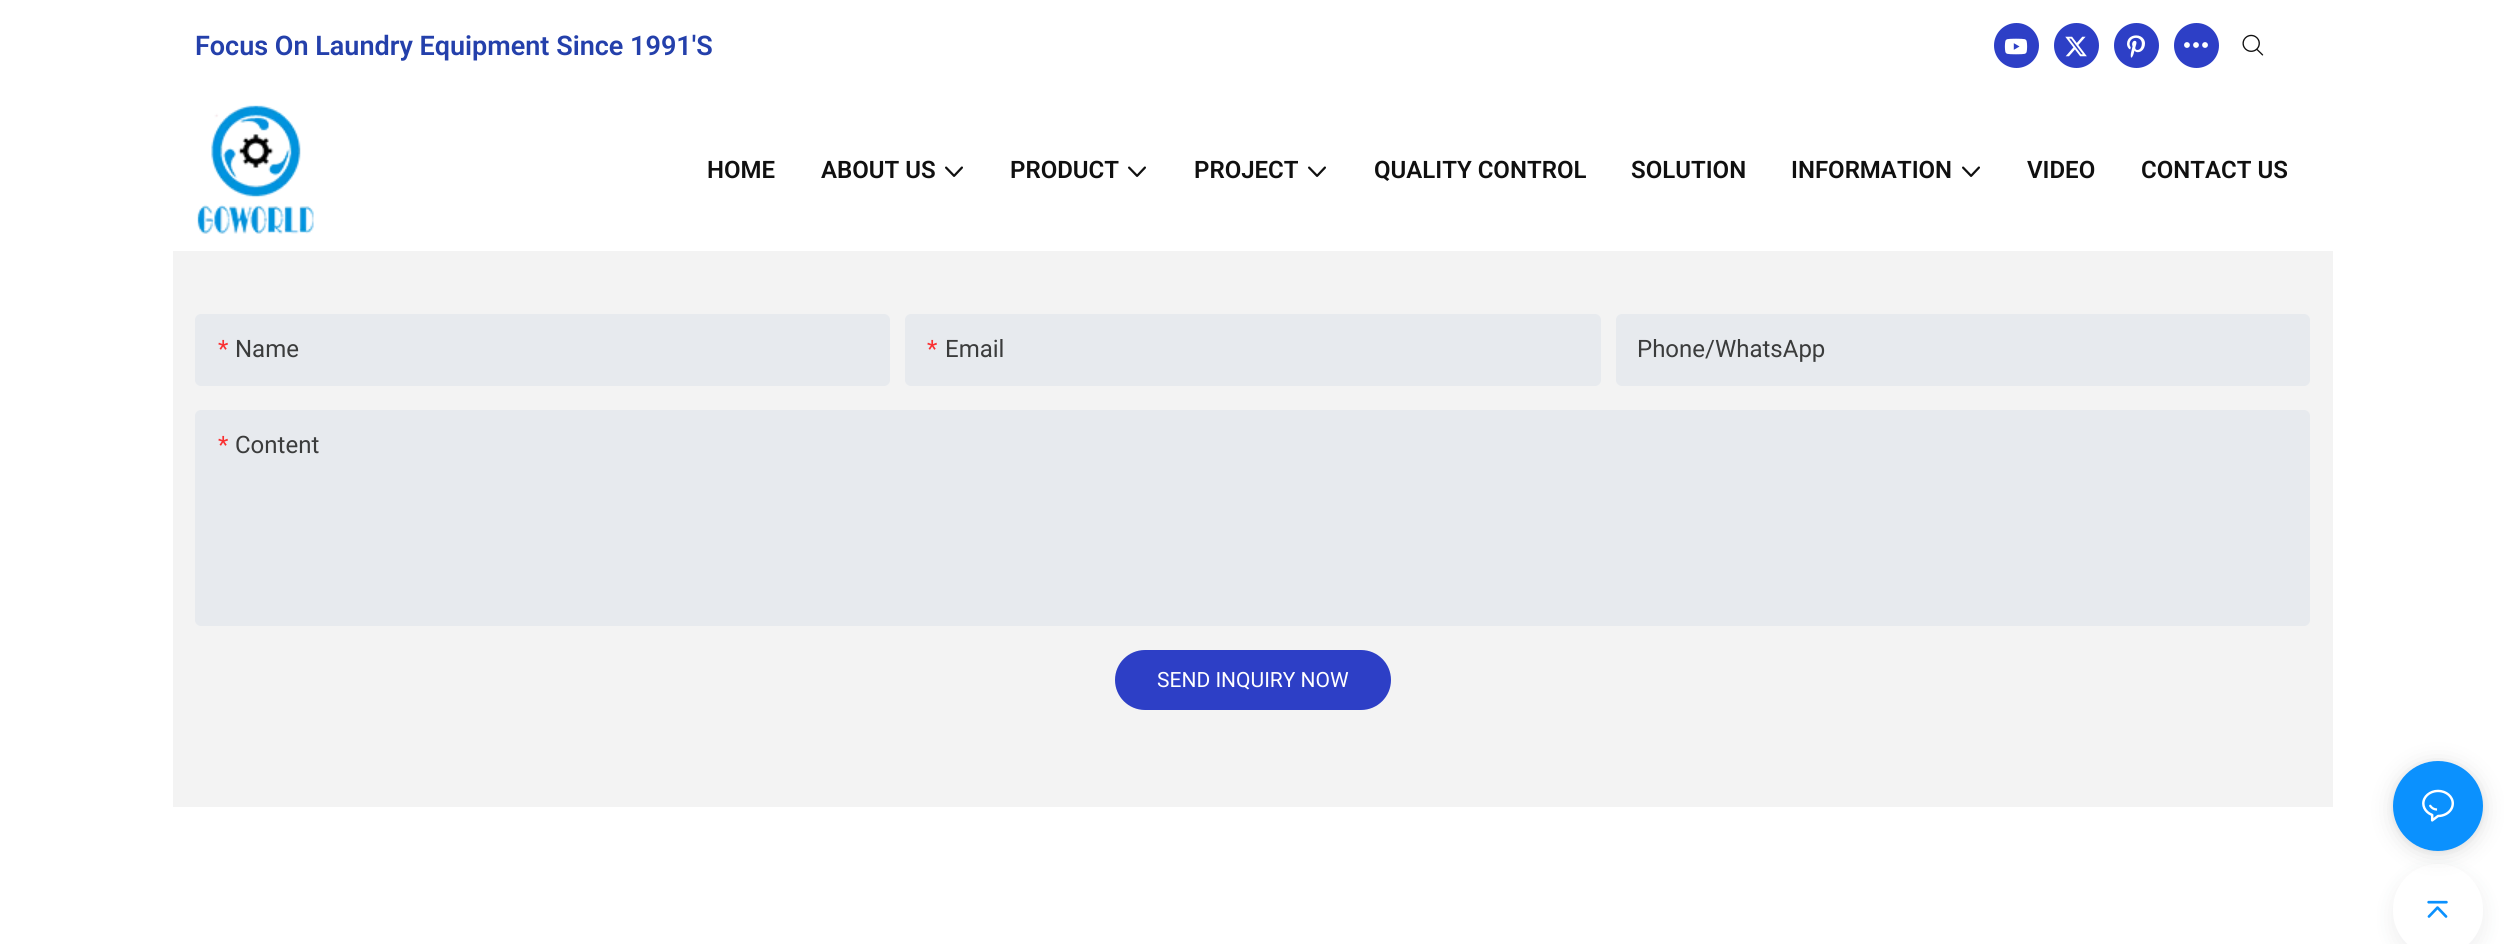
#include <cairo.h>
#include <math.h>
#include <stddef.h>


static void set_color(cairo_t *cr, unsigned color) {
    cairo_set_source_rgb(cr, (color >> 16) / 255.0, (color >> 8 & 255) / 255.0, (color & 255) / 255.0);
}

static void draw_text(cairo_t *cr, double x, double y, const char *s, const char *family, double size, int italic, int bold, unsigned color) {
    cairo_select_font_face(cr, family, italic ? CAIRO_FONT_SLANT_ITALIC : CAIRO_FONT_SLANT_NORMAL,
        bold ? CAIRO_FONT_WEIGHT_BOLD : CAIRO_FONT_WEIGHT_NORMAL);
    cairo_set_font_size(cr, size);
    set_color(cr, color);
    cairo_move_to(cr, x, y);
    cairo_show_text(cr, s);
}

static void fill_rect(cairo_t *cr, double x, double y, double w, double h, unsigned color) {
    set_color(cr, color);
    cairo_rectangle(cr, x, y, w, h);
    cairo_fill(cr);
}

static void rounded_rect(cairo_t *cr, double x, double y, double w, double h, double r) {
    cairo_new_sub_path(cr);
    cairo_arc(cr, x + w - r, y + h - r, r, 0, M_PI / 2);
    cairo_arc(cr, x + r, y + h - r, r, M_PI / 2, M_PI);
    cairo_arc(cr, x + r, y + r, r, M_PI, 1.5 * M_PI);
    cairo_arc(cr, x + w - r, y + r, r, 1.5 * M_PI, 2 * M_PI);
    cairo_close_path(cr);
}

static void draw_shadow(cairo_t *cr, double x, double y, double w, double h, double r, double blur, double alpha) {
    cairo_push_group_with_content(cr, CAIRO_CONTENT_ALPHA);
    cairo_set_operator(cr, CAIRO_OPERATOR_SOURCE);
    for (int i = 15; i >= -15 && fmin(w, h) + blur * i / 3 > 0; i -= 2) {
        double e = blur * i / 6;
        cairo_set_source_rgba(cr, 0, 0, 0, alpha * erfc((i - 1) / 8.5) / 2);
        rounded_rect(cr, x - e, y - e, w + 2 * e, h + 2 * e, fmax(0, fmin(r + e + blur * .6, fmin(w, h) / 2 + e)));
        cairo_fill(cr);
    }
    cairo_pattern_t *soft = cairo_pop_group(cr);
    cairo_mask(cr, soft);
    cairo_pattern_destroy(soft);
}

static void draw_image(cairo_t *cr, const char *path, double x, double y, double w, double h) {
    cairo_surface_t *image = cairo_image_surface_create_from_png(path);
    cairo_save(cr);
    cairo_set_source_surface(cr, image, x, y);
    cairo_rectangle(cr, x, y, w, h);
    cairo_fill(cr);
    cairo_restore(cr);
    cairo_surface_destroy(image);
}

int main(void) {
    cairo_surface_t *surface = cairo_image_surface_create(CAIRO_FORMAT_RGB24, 2504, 944);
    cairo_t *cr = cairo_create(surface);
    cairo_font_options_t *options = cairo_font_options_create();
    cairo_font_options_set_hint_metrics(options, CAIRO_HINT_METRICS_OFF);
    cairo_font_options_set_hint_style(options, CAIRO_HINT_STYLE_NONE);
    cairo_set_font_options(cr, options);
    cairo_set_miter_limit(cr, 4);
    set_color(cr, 0xFFFFFF);
    cairo_paint(cr);
    draw_text(cr, 195, 55, "Focus On Laundry Equipment Since 1991'S", "Roboto SemiBold", 27, 0, 0, 0x2440AB);
    set_color(cr, 0x2D3FC6);
    cairo_new_path(cr);
    cairo_arc(cr, 2016.5, 45.5, 22.5, 0, 2 * M_PI);
    cairo_fill(cr);
    draw_image(cr, "assets/img1.png", 2004, 38, 24, 17);
    cairo_arc(cr, 2076.5, 45.5, 22.5, 0, 2 * M_PI);
    cairo_fill(cr);
    draw_image(cr, "assets/img2.png", 2065, 36, 22, 21);
    cairo_arc(cr, 2136.5, 45.5, 22.5, 0, 2 * M_PI);
    cairo_fill(cr);
    draw_image(cr, "assets/img3.png", 2127, 35, 18, 23);
    cairo_arc(cr, 2196.5, 45.5, 22.5, 0, 2 * M_PI);
    cairo_fill(cr);
    draw_image(cr, "assets/img4.png", 2184, 42, 24, 6);
    draw_image(cr, "assets/img5.png", 2242, 34, 22, 22);
    draw_image(cr, "assets/img6.png", 197, 105, 117, 129);
    draw_text(cr, 707, 178, "HOME", "Roboto SemiBold", 24, 0, 0, 0x101010);
    draw_text(cr, 821, 178, "ABOUT US", "Roboto SemiBold", 24, 0, 0, 0x101010);
    draw_image(cr, "assets/img7.png", 945, 166, 18, 11);
    draw_text(cr, 1010, 178, "PRODUCT", "Roboto SemiBold", 24, 0, 0, 0x101010);
    draw_image(cr, "assets/img7.png", 1128, 166, 18, 11);
    draw_text(cr, 1194, 178, "PROJECT", "Roboto SemiBold", 24, 0, 0, 0x101010);
    draw_image(cr, "assets/img7.png", 1308, 166, 18, 11);
    draw_text(cr, 1374, 178, "QUALITY CONTROL", "Roboto SemiBold", 24, 0, 0, 0x101010);
    draw_text(cr, 1631, 178, "SOLUTION", "Roboto SemiBold", 24, 0, 0, 0x101010);
    draw_text(cr, 1791, 178, "INFORMATION", "Roboto SemiBold", 24, 0, 0, 0x101010);
    draw_image(cr, "assets/img7.png", 1962, 166, 18, 11);
    draw_text(cr, 2027, 178, "VIDEO", "Roboto SemiBold", 24, 0, 0, 0x101010);
    draw_text(cr, 2141, 178, "CONTACT US", "Roboto SemiBold", 24, 0, 0, 0x101010);
    fill_rect(cr, 173, 251, 2160, 556, 0xF3F3F3);
    set_color(cr, 0xE7EAEE);
    rounded_rect(cr, 195, 314, 695, 72, 6);
    cairo_fill(cr);
    draw_text(cr, 218, 357, "*", "Roboto", 24, 0, 0, 0xFA2F30);
    draw_text(cr, 235, 357, "Name", "Roboto", 24, 0, 0, 0x3B3C3C);
    set_color(cr, 0xE7EAEE);
    rounded_rect(cr, 905, 314, 696, 72, 6);
    cairo_fill(cr);
    draw_text(cr, 927, 357, "*", "Roboto", 24, 0, 0, 0xFA2F30);
    draw_text(cr, 945, 357, "Email", "Roboto", 24, 0, 0, 0x3B3C3C);
    set_color(cr, 0xE7EAEE);
    rounded_rect(cr, 1616, 314, 694, 72, 6);
    cairo_fill(cr);
    draw_text(cr, 1637, 357, "Phone/WhatsApp", "Roboto", 24, 0, 0, 0x3B3C3C);
    set_color(cr, 0xE7EAEE);
    rounded_rect(cr, 195, 410, 2115, 216, 6);
    cairo_fill(cr);
    draw_text(cr, 218, 453, "*", "Roboto", 24, 0, 0, 0xFA2F30);
    draw_text(cr, 235, 453, "Content", "Roboto", 24, 0, 0, 0x3B3C3C);
    set_color(cr, 0x2D3FC6);
    rounded_rect(cr, 1115, 650, 276, 60, 30);
    cairo_fill(cr);
    draw_text(cr, 1157, 687, "SEND INQUIRY NOW", "Roboto", 21, 0, 0, 0xFFFFFF);
    set_color(cr, 0x282F36);
    draw_shadow(cr, 2393, 872, 90, 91, 45, 11, 0.08);
    set_color(cr, 0xFFFFFF);
    rounded_rect(cr, 2393, 864, 90, 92, 45);
    cairo_fill(cr);
    set_color(cr, 0x000000);
    draw_shadow(cr, 2393, 764, 90, 90, 45, 12, 0.12);
    draw_shadow(cr, 2393, 762, 90, 90, 45, 3, 0.06);
    set_color(cr, 0x0B91FE);
    cairo_arc(cr, 2438, 806, 45, 0, 2 * M_PI);
    cairo_fill(cr);
    draw_image(cr, "assets/img8.png", 2422, 789, 32, 33);
    draw_image(cr, "assets/img9.png", 2427, 900, 21, 18);
    cairo_surface_write_to_png(surface, "output.png");
    cairo_font_options_destroy(options);
    cairo_destroy(cr);
    cairo_surface_destroy(surface);
    return 0;
}
